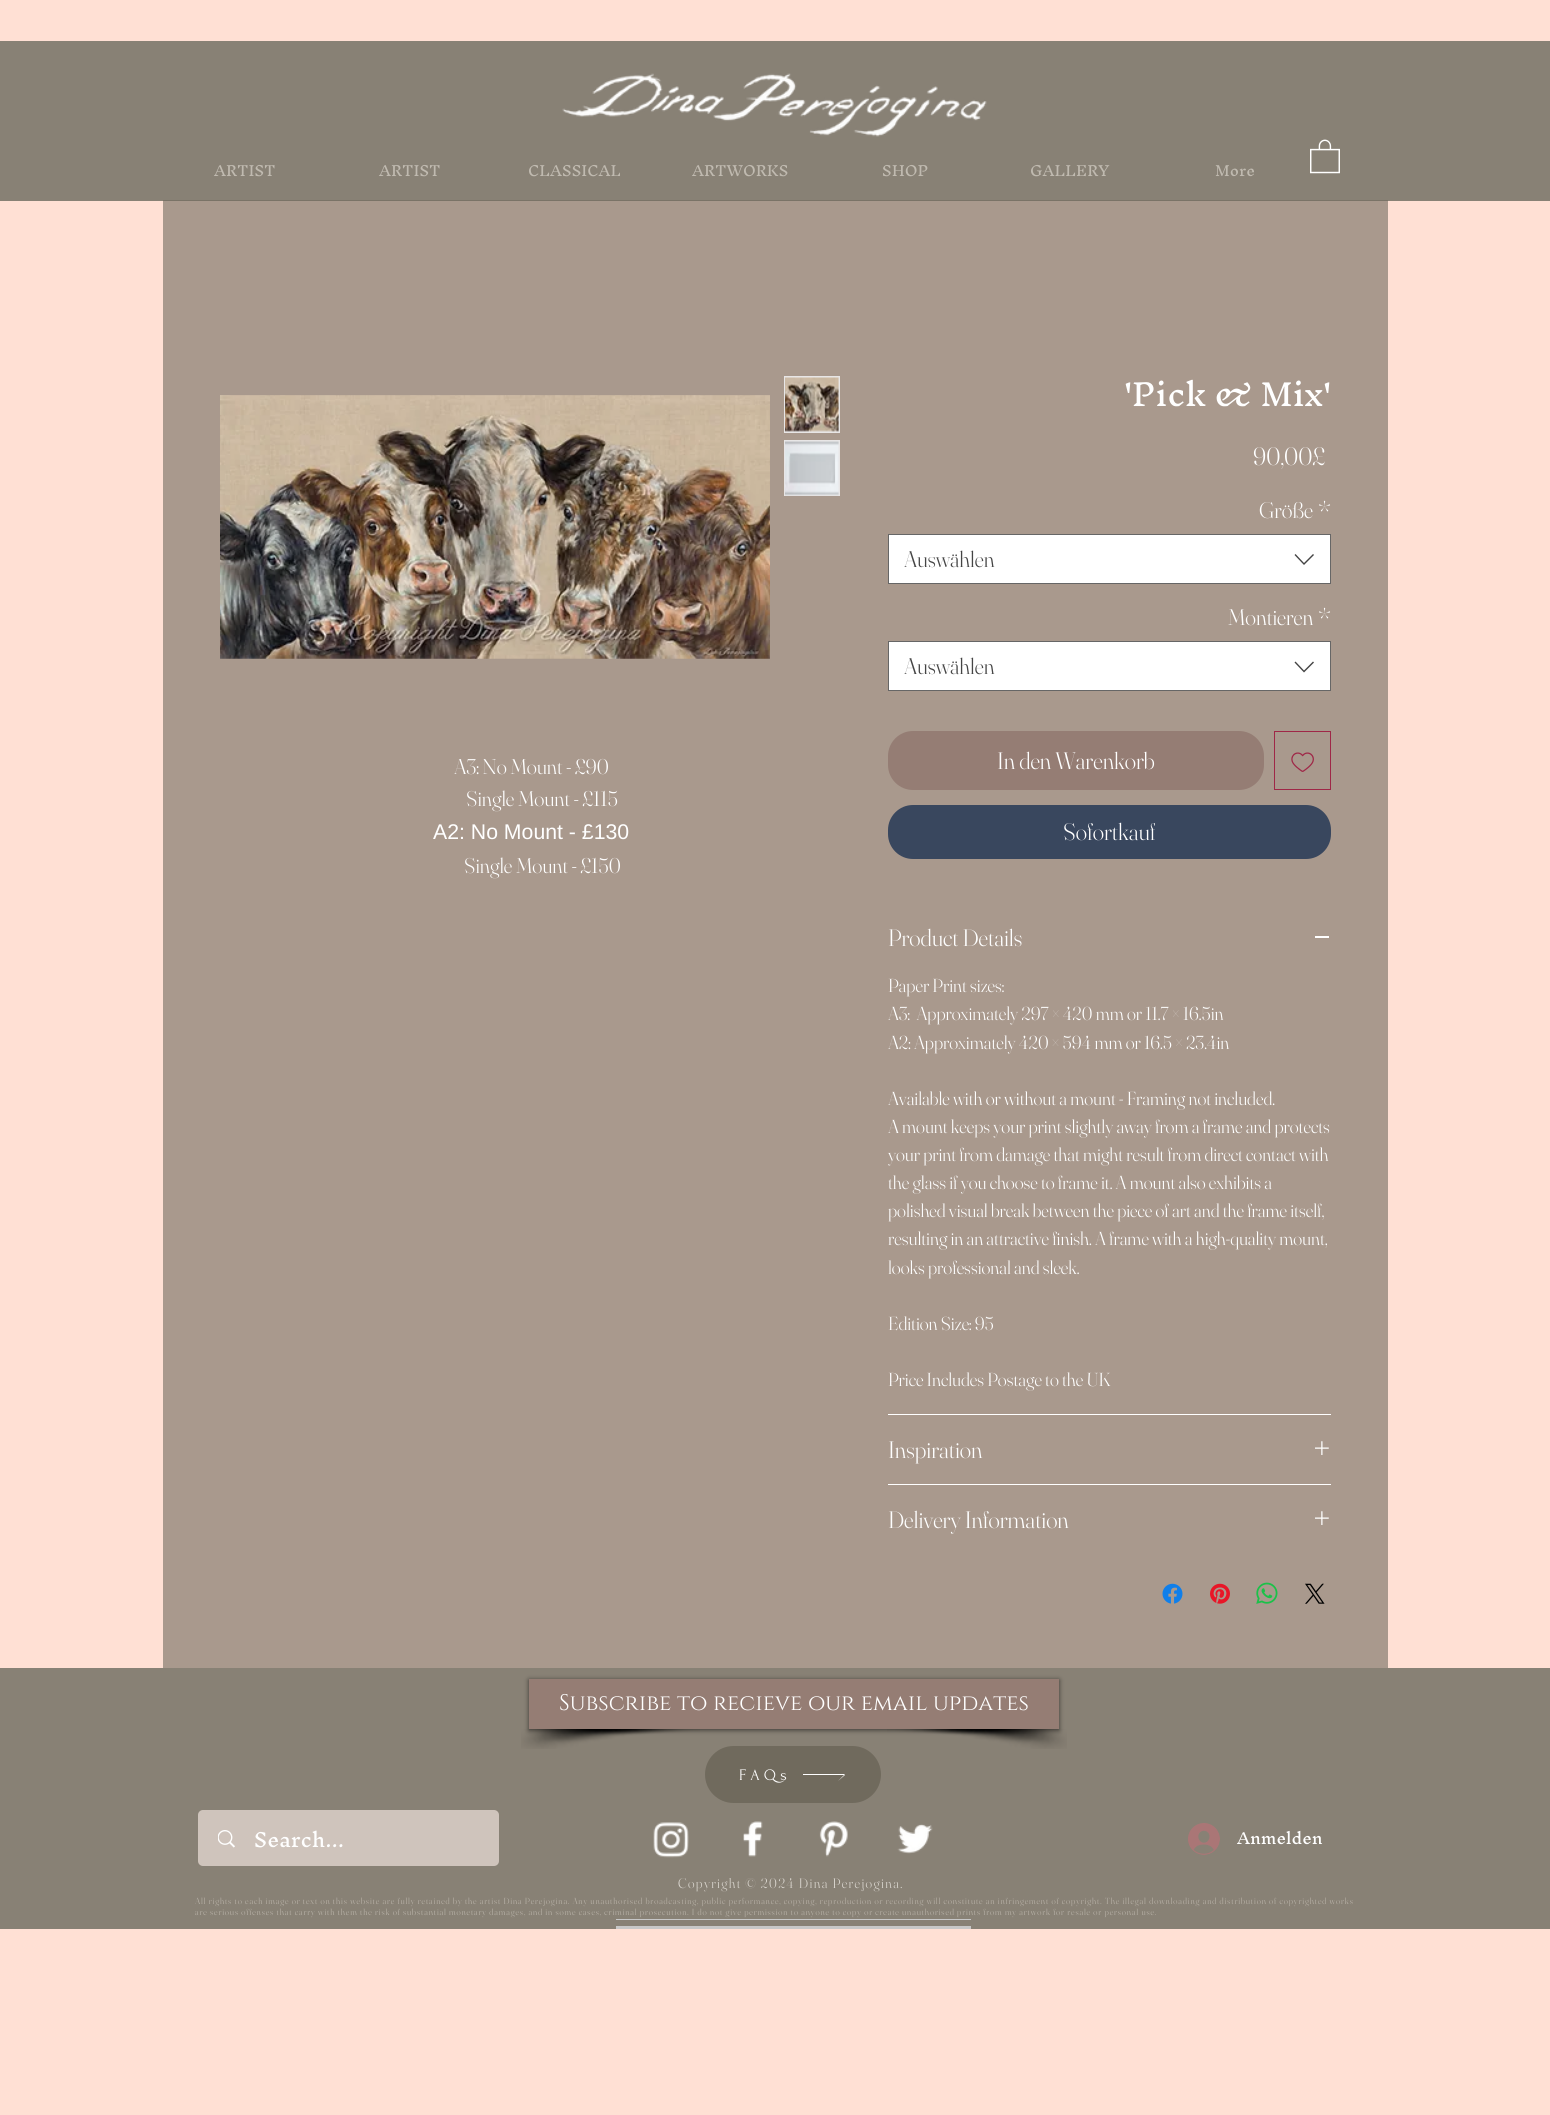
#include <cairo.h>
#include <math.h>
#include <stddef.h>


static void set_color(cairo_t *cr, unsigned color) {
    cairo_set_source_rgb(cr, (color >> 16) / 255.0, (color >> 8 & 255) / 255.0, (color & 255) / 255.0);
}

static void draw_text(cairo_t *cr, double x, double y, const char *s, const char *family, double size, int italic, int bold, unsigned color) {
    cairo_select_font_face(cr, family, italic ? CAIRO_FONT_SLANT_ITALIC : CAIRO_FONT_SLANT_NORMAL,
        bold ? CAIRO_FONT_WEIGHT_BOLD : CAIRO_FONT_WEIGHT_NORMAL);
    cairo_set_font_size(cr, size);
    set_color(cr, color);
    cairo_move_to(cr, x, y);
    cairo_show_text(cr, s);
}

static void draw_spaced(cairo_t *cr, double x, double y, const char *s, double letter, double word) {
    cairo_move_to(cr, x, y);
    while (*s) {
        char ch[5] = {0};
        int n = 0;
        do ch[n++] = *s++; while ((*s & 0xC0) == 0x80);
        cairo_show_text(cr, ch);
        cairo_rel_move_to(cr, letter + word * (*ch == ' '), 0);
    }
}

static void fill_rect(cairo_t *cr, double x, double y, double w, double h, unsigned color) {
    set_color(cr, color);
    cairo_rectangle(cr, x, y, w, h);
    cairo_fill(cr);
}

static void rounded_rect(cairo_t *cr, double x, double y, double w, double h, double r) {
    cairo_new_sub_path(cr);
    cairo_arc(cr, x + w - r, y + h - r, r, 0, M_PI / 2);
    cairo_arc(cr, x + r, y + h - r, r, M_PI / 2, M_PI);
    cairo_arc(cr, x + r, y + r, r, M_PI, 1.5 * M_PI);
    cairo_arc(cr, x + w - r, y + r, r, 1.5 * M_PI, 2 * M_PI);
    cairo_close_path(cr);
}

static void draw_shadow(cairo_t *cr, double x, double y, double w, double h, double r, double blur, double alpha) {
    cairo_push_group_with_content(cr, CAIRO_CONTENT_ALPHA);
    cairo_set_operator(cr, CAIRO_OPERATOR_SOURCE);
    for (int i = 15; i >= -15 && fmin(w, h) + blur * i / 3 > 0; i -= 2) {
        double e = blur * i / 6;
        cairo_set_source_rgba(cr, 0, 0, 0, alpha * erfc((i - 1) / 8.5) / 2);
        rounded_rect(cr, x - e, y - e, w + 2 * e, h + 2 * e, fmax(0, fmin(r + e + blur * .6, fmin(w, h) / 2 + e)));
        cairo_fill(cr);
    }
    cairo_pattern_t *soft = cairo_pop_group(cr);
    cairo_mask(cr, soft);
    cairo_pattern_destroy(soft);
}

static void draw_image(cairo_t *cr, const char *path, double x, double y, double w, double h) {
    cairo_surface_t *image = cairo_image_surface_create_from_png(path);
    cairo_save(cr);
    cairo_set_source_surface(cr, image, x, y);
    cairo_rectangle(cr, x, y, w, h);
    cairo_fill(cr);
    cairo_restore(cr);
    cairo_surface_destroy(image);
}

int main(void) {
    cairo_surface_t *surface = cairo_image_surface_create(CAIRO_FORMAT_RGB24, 1550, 2115);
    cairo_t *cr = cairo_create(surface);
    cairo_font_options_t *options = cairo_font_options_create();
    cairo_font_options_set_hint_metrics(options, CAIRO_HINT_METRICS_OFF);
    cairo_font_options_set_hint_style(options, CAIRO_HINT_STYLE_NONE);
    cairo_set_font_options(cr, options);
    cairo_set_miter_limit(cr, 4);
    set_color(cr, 0xFFE0D4);
    cairo_paint(cr);
    fill_rect(cr, 0, 41, 1550, 160, 0x888175);
    fill_rect(cr, 163, 200, 1225, 1, 0x7A7367);
    draw_image(cr, "assets/img1.png", 562, 73, 425, 64);
    draw_text(cr, 214, 176, "ARTIST", "Inknut Antiqua", 13.75, 0, 0, 0xC0BAB0);
    draw_text(cr, 379, 176, "ARTIST", "Inknut Antiqua", 13.75, 0, 0, 0xC0BAB0);
    draw_text(cr, 528, 176, "CLASSICAL", "Inknut Antiqua", 13.75, 0, 0, 0xC0BAB0);
    draw_text(cr, 692, 176, "ARTWORKS", "Inknut Antiqua", 13.75, 0, 0, 0xC0BAB0);
    draw_text(cr, 882, 176, "SHOP", "Inknut Antiqua", 13.75, 0, 0, 0xC0BAB0);
    draw_text(cr, 1030, 176, "GALLERY", "Inknut Antiqua", 13.75, 0, 0, 0xC0BAB0);
    draw_text(cr, 1215, 176, "More", "Inknut Antiqua", 13.75, 0, 0, 0xC0BAB0);
    draw_image(cr, "assets/img2.png", 1310, 139, 30, 35);
    fill_rect(cr, 163, 201, 1225, 1467, 0xA9998D);
    draw_image(cr, "assets/img3.png", 220, 395, 550, 264);
    fill_rect(cr, 784, 376, 56, 57, 0xE8E6E6);
    draw_image(cr, "assets/img4.png", 785, 377, 54, 55);
    fill_rect(cr, 784, 440, 56, 56, 0xE8E6E6);
    draw_image(cr, "assets/img5.png", 785, 441, 54, 55);
    draw_text(cr, 454, 774, "A3: No Mount - £90", "Fraunces Light", 21.25, 0, 0, 0xFFFFFF);
    draw_text(cr, 466, 806, "Single Mount - £115", "Fraunces Light", 21.25, 0, 0, 0xFFFFFF);
    draw_text(cr, 433, 839, "A2: No Mount - £130", "Liberation Sans", 21.25, 0, 0, 0xFFFFFF);
    draw_text(cr, 464, 873, "Single Mount - £150", "Fraunces Light", 21.25, 0, 0, 0xFFFFFF);
    draw_text(cr, 1124, 406, "'Pick & Mix'", "Inknut Antiqua", 30, 0, 0, 0xFFFFFF);
    draw_text(cr, 1253, 465, "90,00£", "Fraunces Light", 25, 0, 0, 0xFFFFFF);
    draw_text(cr, 1259, 518, "Größe", "Fraunces Light", 22.5, 0, 0, 0xFFFFFF);
    draw_text(cr, 1318, 518, "*", "Fraunces Light", 22.5, 0, 0, 0xFFFFFF);
    cairo_rectangle(cr, 888.5, 534.5, 442, 49);
    cairo_fill_preserve(cr);
    set_color(cr, 0x666666);
    cairo_set_line_width(cr, 1);
    cairo_stroke(cr);
    draw_text(cr, 904, 567, "Auswählen", "Fraunces Light", 22.5, 0, 0, 0x444444);
    cairo_set_fill_rule(cr, CAIRO_FILL_RULE_EVEN_ODD);
    cairo_new_path(cr);
    cairo_move_to(cr, 1313, 554);
    cairo_line_to(cr, 1314, 555);
    cairo_line_to(cr, 1304, 565);
    cairo_line_to(cr, 1294.5, 555);
    cairo_line_to(cr, 1295.5, 554);
    cairo_line_to(cr, 1304, 563);
    cairo_close_path(cr);
    cairo_fill(cr);
    draw_text(cr, 1228, 625, "Montieren", "Fraunces Light", 22.5, 0, 0, 0xFFFFFF);
    draw_text(cr, 1318, 625, "*", "Fraunces Light", 22.5, 0, 0, 0xFFFFFF);
    cairo_rectangle(cr, 888.5, 641.5, 442, 49);
    cairo_fill_preserve(cr);
    set_color(cr, 0x666666);
    cairo_stroke(cr);
    draw_text(cr, 904, 674, "Auswählen", "Fraunces Light", 22.5, 0, 0, 0x444444);
    cairo_new_path(cr);
    cairo_move_to(cr, 1313, 661.5);
    cairo_line_to(cr, 1314, 662.5);
    cairo_line_to(cr, 1304, 672.5);
    cairo_line_to(cr, 1294.5, 662.5);
    cairo_line_to(cr, 1295.5, 661.5);
    cairo_line_to(cr, 1304, 670.5);
    cairo_close_path(cr);
    cairo_fill(cr);
    set_color(cr, 0x957D74);
    rounded_rect(cr, 888, 731, 376, 59, 25);
    cairo_fill(cr);
    draw_text(cr, 997, 769, "In den Warenkorb", "Fraunces Light", 23.75, 0, 0, 0xFFFFFF);
    cairo_rectangle(cr, 1274.5, 731.5, 56, 58);
    set_color(cr, 0x9F2747);
    cairo_stroke(cr);
    draw_image(cr, "assets/img6.png", 1291, 752, 23, 20);
    set_color(cr, 0x39475E);
    rounded_rect(cr, 888, 805, 443, 54, 25);
    cairo_fill(cr);
    cairo_save(cr);
    cairo_set_fill_rule(cr, CAIRO_FILL_RULE_WINDING);
    cairo_rectangle(cr, 1064, 818, 91, 28);
    cairo_clip(cr);
    draw_text(cr, 1063, 840, "Sofortkauf", "Fraunces Light", 23.75, 0, 0, 0xFFFFFF);
    cairo_restore(cr);
    fill_rect(cr, 888, 1414, 443, 1, 0xFFFFFF);
    draw_text(cr, 888, 946, "Product Details", "Fraunces Light", 23.75, 0, 0, 0xFFFFFF);
    fill_rect(cr, 1315, 936, 14, 2, 0xFFFFFF);
    draw_text(cr, 888, 992, "Paper Print sizes:", "Fraunces Light", 18.75, 0, 0, 0xFFFFFF);
    draw_text(cr, 888, 1020, "A3:  Approximately 297 × 420 mm or 11.7 × 16.5in", "Fraunces Light", 18.75, 0, 0, 0xFFFFFF);
    draw_text(cr, 888, 1049, "A2: Approximately 420 × 594 mm or 16.5 × 23.4in", "Fraunces Light", 18.75, 0, 0, 0xFFFFFF);
    draw_text(cr, 888, 1105, "Available with or without a mount - Framing not included.", "Fraunces Light", 18.75, 0, 0, 0xFFFFFF);
    draw_text(cr, 888, 1133, "A mount keeps your print slightly away from a frame and protects", "Fraunces Light", 18.75, 0, 0, 0xFFFFFF);
    draw_text(cr, 888, 1161, "your print from damage that might result from direct contact with", "Fraunces Light", 18.75, 0, 0, 0xFFFFFF);
    draw_text(cr, 888, 1189, "the glass if you choose to frame it. A mount also exhibits a", "Fraunces Light", 18.75, 0, 0, 0xFFFFFF);
    draw_text(cr, 888, 1217, "polished visual break between the piece of art and the frame itself,", "Fraunces Light", 18.75, 0, 0, 0xFFFFFF);
    draw_text(cr, 888, 1245, "resulting in an attractive finish. A frame with a high-quality mount,", "Fraunces Light", 18.75, 0, 0, 0xFFFFFF);
    draw_text(cr, 888, 1274, "looks professional and sleek.", "Fraunces Light", 18.75, 0, 0, 0xFFFFFF);
    draw_text(cr, 888, 1330, "Edition Size: 95", "Fraunces Light", 18.75, 0, 0, 0xFFFFFF);
    draw_text(cr, 888, 1386, "Price Includes Postage to the UK", "Fraunces Light", 18.75, 0, 0, 0xFFFFFF);
    fill_rect(cr, 888, 1484, 443, 1, 0xFFFFFF);
    draw_text(cr, 888, 1458, "Inspiration", "Fraunces Light", 23.75, 0, 0, 0xFFFFFF);
    draw_image(cr, "assets/img7.png", 1315, 1441, 14, 14);
    draw_text(cr, 888, 1528, "Delivery Information", "Fraunces Light", 23.75, 0, 0, 0xFFFFFF);
    draw_image(cr, "assets/img7.png", 1315, 1511, 14, 14);
    draw_image(cr, "assets/img8.png", 1162, 1583, 21, 21);
    draw_image(cr, "assets/img9.png", 1210, 1583, 20, 21);
    draw_image(cr, "assets/img10.png", 1256, 1582, 22, 22);
    draw_image(cr, "assets/img11.png", 1305, 1583, 20, 21);
    fill_rect(cr, 0, 1668, 1550, 261, 0x888175);
    draw_image(cr, "assets/img12.png", 521, 1729, 179, 20);
    draw_image(cr, "assets/img13.png", 887, 1729, 180, 20);
    set_color(cr, 0x000000);
    draw_shadow(cr, 529, 1680, 530, 50, 0, 2.5, 0.6);
    fill_rect(cr, 529, 1679, 530, 50, 0x957D74);
    draw_text(cr, 559, 1710, "Subscribe to recieve our email updates", "Cinzel", 22.5, 0, 0, 0xFFFFFF);
    set_color(cr, 0x706A5D);
    rounded_rect(cr, 705, 1746, 176, 57, 28.5);
    cairo_fill(cr);
    cairo_select_font_face(cr, "Forum", CAIRO_FONT_SLANT_NORMAL, CAIRO_FONT_WEIGHT_NORMAL);
    cairo_set_font_size(cr, 16);
    set_color(cr, 0xFFFFFF);
    draw_spaced(cr, 739, 1780, "FAQs", 4, 0);
    cairo_set_fill_rule(cr, CAIRO_FILL_RULE_WINDING);
    cairo_new_path(cr);
    cairo_move_to(cr, 838, 1768);
    cairo_line_to(cr, 844, 1774);
    cairo_line_to(cr, 803, 1774);
    cairo_line_to(cr, 803, 1775);
    cairo_line_to(cr, 844, 1775);
    cairo_line_to(cr, 838, 1781);
    cairo_line_to(cr, 845, 1775);
    cairo_close_path(cr);
    cairo_fill(cr);
    set_color(cr, 0xCFC4BC);
    rounded_rect(cr, 198, 1810, 301, 56, 5);
    cairo_fill(cr);
    draw_image(cr, "assets/img14.png", 218, 1830, 17, 18);
    draw_text(cr, 254, 1847, "Search...", "Inknut Antiqua", 18.75, 0, 0, 0xFFFFFF);
    draw_image(cr, "assets/img15.png", 653, 1822, 36, 36);
    draw_image(cr, "assets/img16.png", 743, 1821, 20, 36);
    draw_image(cr, "assets/img17.png", 819, 1821, 29, 36);
    draw_image(cr, "assets/img18.png", 897, 1824, 36, 30);
    draw_image(cr, "assets/img19.png", 1188, 1823, 32, 32);
    draw_text(cr, 1237, 1844, "Anmelden", "Inknut Antiqua", 15, 0, 0, 0xFFFFFF);
    cairo_select_font_face(cr, "Fraunces Light", CAIRO_FONT_SLANT_NORMAL, CAIRO_FONT_WEIGHT_NORMAL);
    cairo_set_font_size(cr, 13.75);
    set_color(cr, 0xDDD9D2);
    draw_spaced(cr, 678, 1888, "Copyright © 2024 Dina Perejogina.", 1.4, 0);
    cairo_set_font_size(cr, 8.75);
    set_color(cr, 0xC0BAB0);
    draw_spaced(cr, 195, 1904, "All rights to each image or text on this website are fully retained by the artist Dina Perejogina. Any unauthorised broadcasting, public performance, copying, reproduction or recording will constitute an infringement of copyright. The illegal downloading and distribution of copyrighted works", 0.88, 0);
    draw_spaced(cr, 195, 1915, "are serious offenses that carry with them the risk of substantial monetary damages, and in some cases, criminal prosecution. I do not give permission to anyone to copy or create unauthorised prints from my artwork for resale or personal use.", 0.88, 0);
    fill_rect(cr, 616, 1919, 355, 1, 0xC7C7C7);
    fill_rect(cr, 616, 1926, 355, 3, 0xC7C7C7);
    cairo_surface_write_to_png(surface, "output.png");
    cairo_font_options_destroy(options);
    cairo_destroy(cr);
    cairo_surface_destroy(surface);
    return 0;
}
